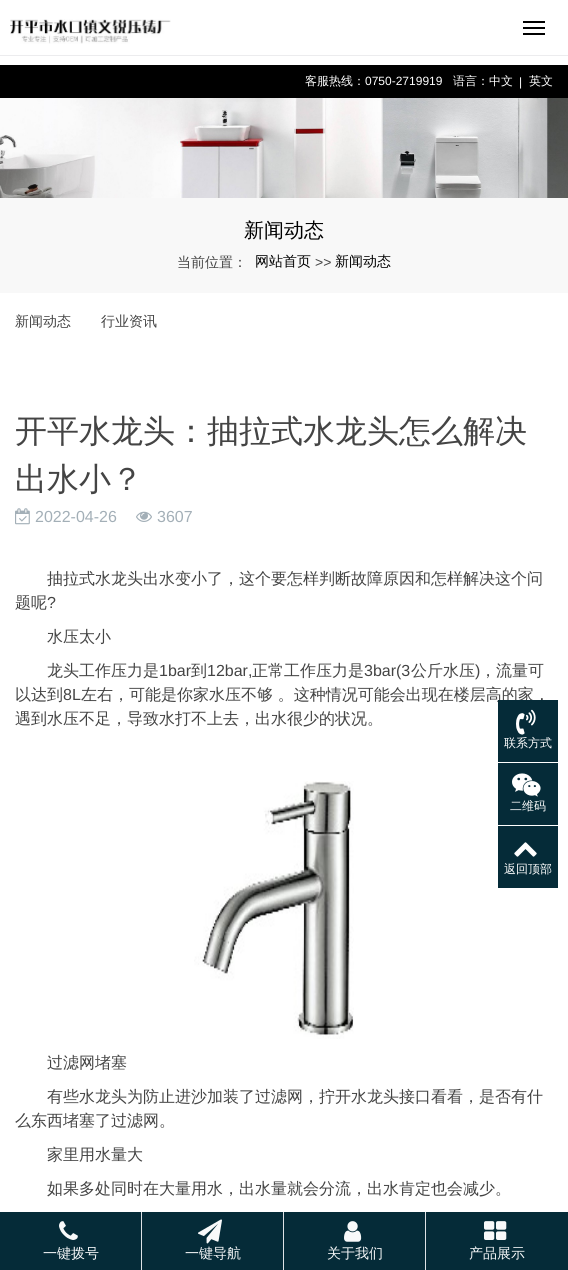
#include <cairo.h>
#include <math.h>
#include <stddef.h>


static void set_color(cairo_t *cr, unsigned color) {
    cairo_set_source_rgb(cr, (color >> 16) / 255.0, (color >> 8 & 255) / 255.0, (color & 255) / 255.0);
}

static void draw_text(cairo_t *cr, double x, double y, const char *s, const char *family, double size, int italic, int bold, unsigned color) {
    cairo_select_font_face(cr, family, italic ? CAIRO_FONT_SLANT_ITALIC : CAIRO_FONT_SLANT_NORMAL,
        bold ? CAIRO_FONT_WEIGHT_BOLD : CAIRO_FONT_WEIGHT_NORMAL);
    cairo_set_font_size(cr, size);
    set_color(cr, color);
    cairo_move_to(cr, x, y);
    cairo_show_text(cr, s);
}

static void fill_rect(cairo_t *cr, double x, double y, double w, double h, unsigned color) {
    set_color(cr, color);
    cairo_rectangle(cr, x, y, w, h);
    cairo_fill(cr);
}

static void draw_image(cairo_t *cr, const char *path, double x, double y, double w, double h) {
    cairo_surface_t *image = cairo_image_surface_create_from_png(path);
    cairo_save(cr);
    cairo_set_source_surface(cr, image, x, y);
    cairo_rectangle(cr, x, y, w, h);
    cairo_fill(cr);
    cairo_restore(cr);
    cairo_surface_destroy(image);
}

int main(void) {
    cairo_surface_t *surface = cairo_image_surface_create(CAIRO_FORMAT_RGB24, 568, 1270);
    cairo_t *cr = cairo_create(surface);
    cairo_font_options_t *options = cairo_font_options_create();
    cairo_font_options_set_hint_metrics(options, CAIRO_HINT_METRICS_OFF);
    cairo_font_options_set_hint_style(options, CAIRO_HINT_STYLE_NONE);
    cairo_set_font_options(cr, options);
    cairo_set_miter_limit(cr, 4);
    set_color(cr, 0xFFFFFF);
    cairo_paint(cr);
    fill_rect(cr, 0, 55, 568, 1, 0xECECEE);
    draw_image(cr, "assets/img1.png", 10, 19, 161, 25);
    fill_rect(cr, 523, 27, 22, 2, 0x000000);
    fill_rect(cr, 523, 21, 22, 2, 0x000000);
    fill_rect(cr, 523, 33, 22, 2, 0x000000);
    fill_rect(cr, 0, 65, 568, 33, 0x000000);
    draw_text(cr, 305, 85, "客服热线：", "WenQuanYi Zen Hei Medium", 12, 0, 0, 0xFFFFFF);
    draw_text(cr, 365, 85, "0750-2719919", "Liberation Sans", 12, 0, 0, 0xFFFFFF);
    draw_text(cr, 453, 85, "语言：中文", "WenQuanYi Zen Hei Medium", 12, 0, 0, 0xFFFFFF);
    draw_text(cr, 519, 86, "|", "Liberation Sans", 12, 0, 0, 0xFFFFFF);
    draw_text(cr, 529, 85, "英文", "WenQuanYi Zen Hei Medium", 12, 0, 0, 0xFFFFFF);
    draw_image(cr, "assets/img2.png", 0, 98, 568, 100);
    fill_rect(cr, 0, 198, 568, 95, 0xF8F8F8);
    draw_text(cr, 244, 237, "新闻动态", "WenQuanYi Zen Hei Medium", 20, 0, 0, 0x000000);
    draw_text(cr, 177, 267, "当前位置：", "WenQuanYi Zen Hei Medium", 14, 0, 0, 0x444444);
    draw_text(cr, 255, 266, "网站首页", "WenQuanYi Zen Hei Medium", 14, 0, 0, 0x000000);
    draw_text(cr, 315, 267, ">>", "Liberation Sans", 14, 0, 0, 0x444444);
    draw_text(cr, 335, 266, "新闻动态", "WenQuanYi Zen Hei Medium", 14, 0, 0, 0x000000);
    draw_text(cr, 15, 326, "新闻动态", "WenQuanYi Zen Hei Medium", 14, 0, 0, 0x444444);
    draw_text(cr, 101, 326, "行业资讯", "WenQuanYi Zen Hei Medium", 14, 0, 0, 0x444444);
    draw_text(cr, 15, 442, "开平水龙头：抽拉式水龙头怎么解决", "WenQuanYi Zen Hei Medium", 32, 0, 0, 0x444444);
    draw_text(cr, 15, 490, "出水小？", "WenQuanYi Zen Hei Medium", 32, 0, 0, 0x444444);
    draw_image(cr, "assets/img3.png", 15, 508, 15, 17);
    draw_text(cr, 35, 522, "2022-04-26", "Liberation Sans", 16, 0, 0, 0xA3AFB7);
    draw_image(cr, "assets/img4.png", 136, 511, 16, 11);
    draw_text(cr, 157, 522, "3607", "Liberation Sans", 16, 0, 0, 0xA3AFB7);
    draw_text(cr, 47, 584, "抽拉式水龙头出水变小了，这个要怎样判断故障原因和怎样解决这个问", "WenQuanYi Zen Hei Medium", 16, 0, 0, 0x444444);
    draw_text(cr, 15, 608, "题呢", "WenQuanYi Zen Hei Medium", 16, 0, 0, 0x444444);
    draw_text(cr, 47, 608, "?", "Liberation Sans", 16, 0, 0, 0x444444);
    draw_text(cr, 47, 642, "水压太小", "WenQuanYi Zen Hei Medium", 16, 0, 0, 0x444444);
    draw_text(cr, 47, 676, "龙头工作压力是", "WenQuanYi Zen Hei Medium", 16, 0, 0, 0x444444);
    draw_text(cr, 159, 676, "1bar", "Liberation Sans", 16, 0, 0, 0x444444);
    draw_text(cr, 191, 676, "到", "WenQuanYi Zen Hei Medium", 16, 0, 0, 0x444444);
    draw_text(cr, 207, 676, "12bar,", "Liberation Sans", 16, 0, 0, 0x444444);
    draw_text(cr, 252, 676, "正常工作压力是", "WenQuanYi Zen Hei Medium", 16, 0, 0, 0x444444);
    draw_text(cr, 364, 676, "3bar(3", "Liberation Sans", 16, 0, 0, 0x444444);
    draw_text(cr, 411, 676, "公斤水压", "WenQuanYi Zen Hei Medium", 16, 0, 0, 0x444444);
    draw_text(cr, 475, 676, ")", "Liberation Sans", 16, 0, 0, 0x444444);
    draw_text(cr, 480, 676, "，流量可", "WenQuanYi Zen Hei Medium", 16, 0, 0, 0x444444);
    draw_text(cr, 15, 700, "以达到", "WenQuanYi Zen Hei Medium", 16, 0, 0, 0x444444);
    draw_text(cr, 63, 700, "8L", "Liberation Sans", 16, 0, 0, 0x444444);
    draw_text(cr, 81, 700, "左右，可能是你家水压不够 。这种情况可能会出现在楼层高的家，", "WenQuanYi Zen Hei Medium", 16, 0, 0, 0x444444);
    draw_text(cr, 15, 724, "遇到水压不足，导致水打不上去，出水很少的状况。", "WenQuanYi Zen Hei Medium", 16, 0, 0, 0x444444);
    draw_image(cr, "assets/img5.png", 194, 781, 160, 258);
    draw_text(cr, 47, 1068, "过滤网堵塞", "WenQuanYi Zen Hei Medium", 16, 0, 0, 0x444444);
    draw_text(cr, 47, 1102, "有些水龙头为防止进沙加装了过滤网，拧开水龙头接口看看，是否有什", "WenQuanYi Zen Hei Medium", 16, 0, 0, 0x444444);
    draw_text(cr, 15, 1126, "么东西堵塞了过滤网。", "WenQuanYi Zen Hei Medium", 16, 0, 0, 0x444444);
    draw_text(cr, 47, 1160, "家里用水量大", "WenQuanYi Zen Hei Medium", 16, 0, 0, 0x444444);
    draw_text(cr, 47, 1194, "如果多处同时在大量用水，出水量就会分流，出水肯定也会减少。", "WenQuanYi Zen Hei Medium", 16, 0, 0, 0x444444);
    fill_rect(cr, 498, 700, 60, 62, 0x052B38);
    draw_image(cr, "assets/img6.png", 516, 709, 20, 26);
    draw_text(cr, 504, 747, "联系方式", "WenQuanYi Zen Hei Medium", 12, 0, 0, 0xFFFFFF);
    fill_rect(cr, 498, 763, 60, 62, 0x052B38);
    draw_image(cr, "assets/img7.png", 512, 773, 29, 24);
    draw_text(cr, 510, 810, "二维码", "WenQuanYi Zen Hei Medium", 12, 0, 0, 0xFFFFFF);
    fill_rect(cr, 498, 826, 60, 62, 0x052B38);
    draw_image(cr, "assets/img8.png", 514, 842, 23, 15);
    draw_text(cr, 504, 873, "返回顶部", "WenQuanYi Zen Hei Medium", 12, 0, 0, 0xFFFFFF);
    fill_rect(cr, 0, 1212, 568, 58, 0x052B38);
    fill_rect(cr, 141, 1212, 1, 58, 0xDEE2E6);
    draw_image(cr, "assets/img9.png", 59, 1221, 19, 19);
    draw_text(cr, 43, 1258, "一键拨号", "WenQuanYi Zen Hei Medium", 14, 0, 0, 0xF8F9FA);
    fill_rect(cr, 283, 1212, 1, 58, 0xDEE2E6);
    draw_image(cr, "assets/img10.png", 198, 1219, 24, 25);
    draw_text(cr, 185, 1258, "一键导航", "WenQuanYi Zen Hei Medium", 14, 0, 0, 0xF8F9FA);
    fill_rect(cr, 425, 1212, 1, 58, 0xDEE2E6);
    draw_image(cr, "assets/img11.png", 344, 1221, 18, 21);
    draw_text(cr, 327, 1258, "关于我们", "WenQuanYi Zen Hei Medium", 14, 0, 0, 0xF8F9FA);
    draw_image(cr, "assets/img12.png", 484, 1221, 23, 19);
    draw_text(cr, 469, 1258, "产品展示", "WenQuanYi Zen Hei Medium", 14, 0, 0, 0xF8F9FA);
    cairo_surface_write_to_png(surface, "output.png");
    cairo_font_options_destroy(options);
    cairo_destroy(cr);
    cairo_surface_destroy(surface);
    return 0;
}
